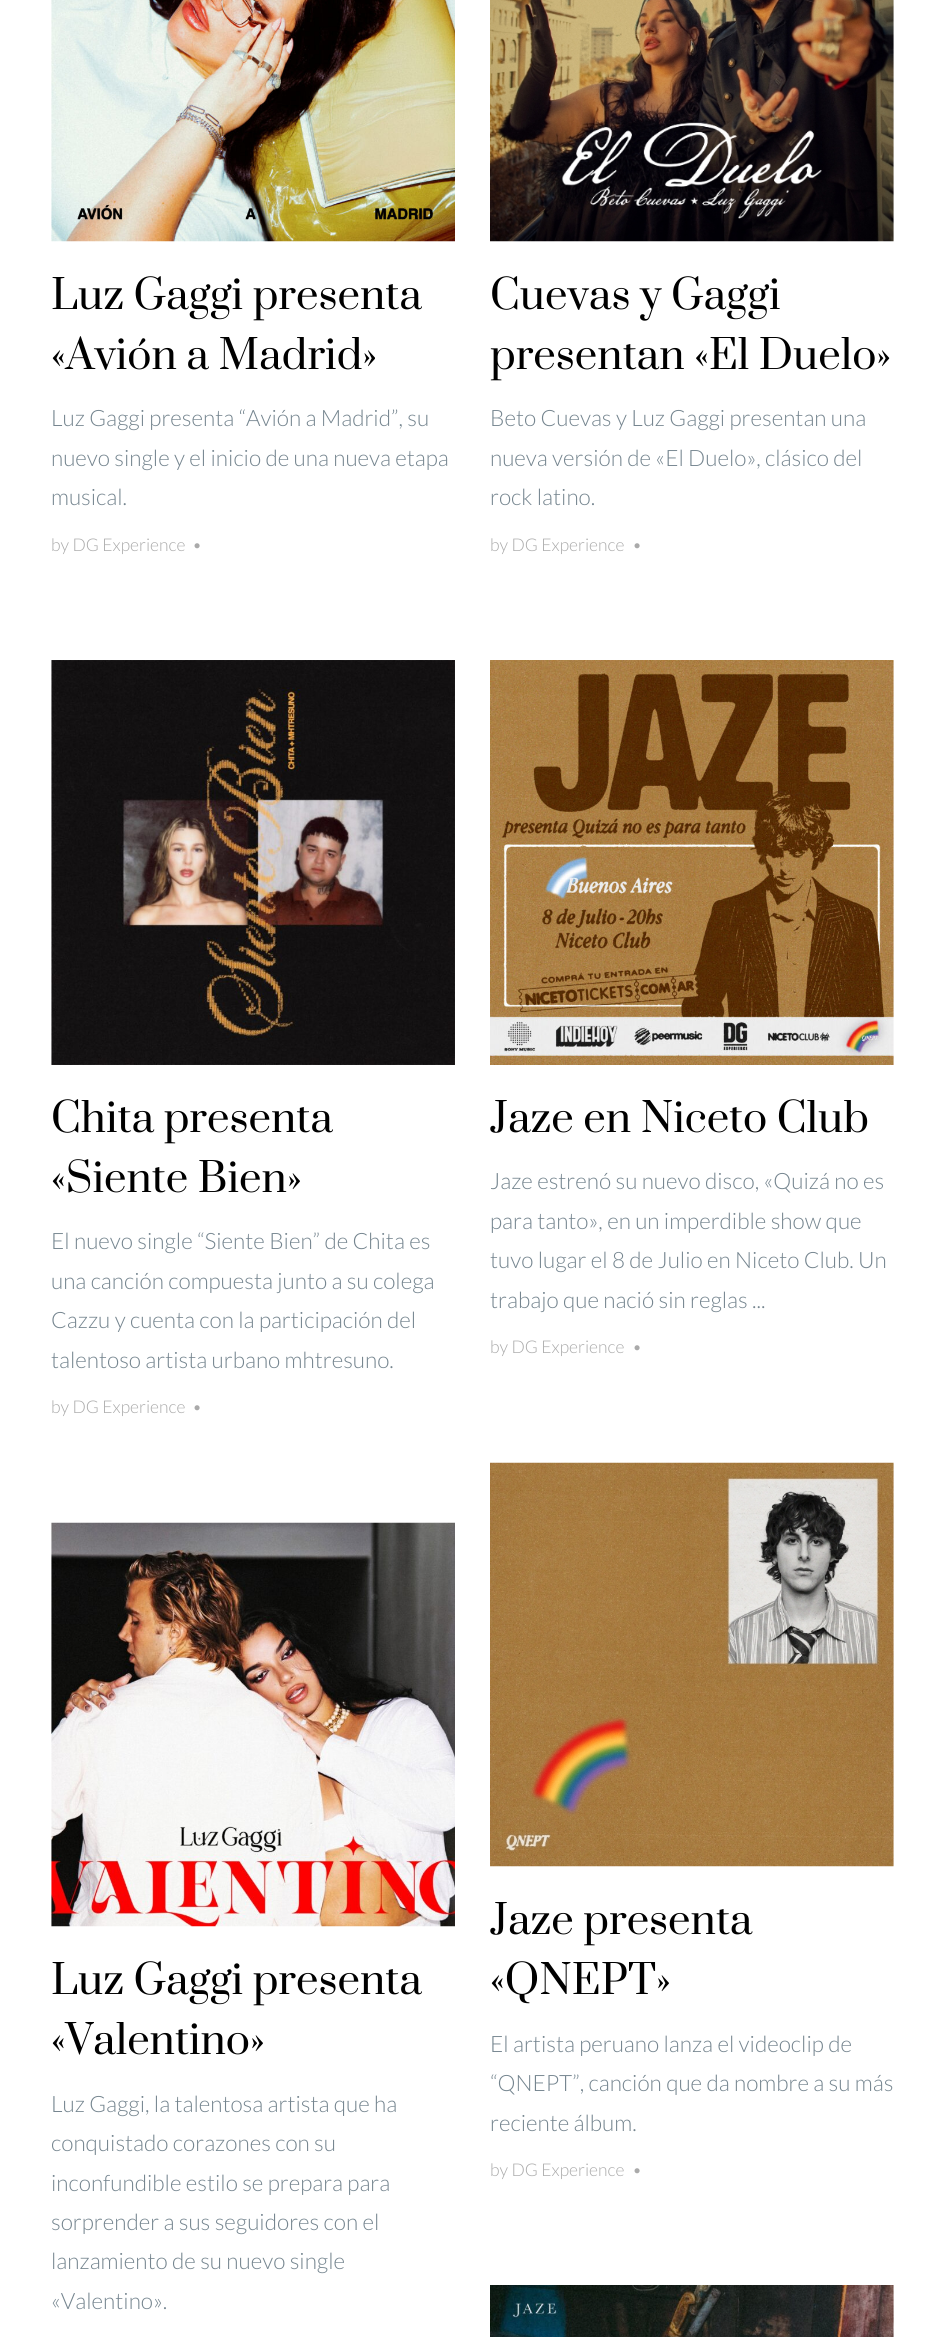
#include <cairo.h>
#include <math.h>
#include <stddef.h>


static void set_color(cairo_t *cr, unsigned color) {
    cairo_set_source_rgb(cr, (color >> 16) / 255.0, (color >> 8 & 255) / 255.0, (color & 255) / 255.0);
}

static void draw_text(cairo_t *cr, double x, double y, const char *s, const char *family, double size, int italic, int bold, unsigned color) {
    cairo_select_font_face(cr, family, italic ? CAIRO_FONT_SLANT_ITALIC : CAIRO_FONT_SLANT_NORMAL,
        bold ? CAIRO_FONT_WEIGHT_BOLD : CAIRO_FONT_WEIGHT_NORMAL);
    cairo_set_font_size(cr, size);
    set_color(cr, color);
    cairo_move_to(cr, x, y);
    cairo_show_text(cr, s);
}

static void draw_image(cairo_t *cr, const char *path, double x, double y, double w, double h) {
    cairo_surface_t *image = cairo_image_surface_create_from_png(path);
    cairo_save(cr);
    cairo_set_source_surface(cr, image, x, y);
    cairo_rectangle(cr, x, y, w, h);
    cairo_fill(cr);
    cairo_restore(cr);
    cairo_surface_destroy(image);
}

int main(void) {
    cairo_surface_t *surface = cairo_image_surface_create(CAIRO_FORMAT_RGB24, 944, 2337);
    cairo_t *cr = cairo_create(surface);
    cairo_font_options_t *options = cairo_font_options_create();
    cairo_font_options_set_hint_metrics(options, CAIRO_HINT_METRICS_OFF);
    cairo_font_options_set_hint_style(options, CAIRO_HINT_STYLE_NONE);
    cairo_set_font_options(cr, options);
    cairo_set_miter_limit(cr, 4);
    set_color(cr, 0xFFFFFF);
    cairo_paint(cr);
    draw_image(cr, "assets/img1.png", 51, 0, 404, 242);
    draw_text(cr, 51, 309, "Luz Gaggi presenta", "Prata", 40, 0, 0, 0x000000);
    draw_text(cr, 51, 369, "«Avión a Madrid»", "Prata", 40, 0, 0, 0x000000);
    draw_text(cr, 51, 426, "Luz Gaggi presenta “Avión a Madrid”, su", "Lato Light", 22.5, 0, 0, 0x75858F);
    draw_text(cr, 51, 466, "nuevo single y el inicio de una nueva etapa", "Lato Light", 22.5, 0, 0, 0x75858F);
    draw_text(cr, 51, 505, "musical.", "Lato Light", 22.5, 0, 0, 0x75858F);
    draw_text(cr, 51, 551, "by DG Experience", "Lato Light", 17.5, 0, 0, 0xAAAAAA);
    draw_text(cr, 192, 551, "•", "Lato Light", 17.5, 0, 0, 0xAAAAAA);
    draw_image(cr, "assets/img2.png", 490, 0, 404, 242);
    draw_text(cr, 490, 309, "Cuevas y Gaggi", "Prata", 40, 0, 0, 0x000000);
    draw_text(cr, 490, 369, "presentan «El Duelo»", "Prata", 40, 0, 0, 0x000000);
    draw_text(cr, 490, 426, "Beto Cuevas y Luz Gaggi presentan una", "Lato Light", 22.5, 0, 0, 0x75858F);
    draw_text(cr, 490, 466, "nueva versión de «El Duelo», clásico del", "Lato Light", 22.5, 0, 0, 0x75858F);
    draw_text(cr, 490, 505, "rock latino.", "Lato Light", 22.5, 0, 0, 0x75858F);
    draw_text(cr, 490, 551, "by DG Experience", "Lato Light", 17.5, 0, 0, 0xAAAAAA);
    draw_text(cr, 632, 551, "•", "Lato Light", 17.5, 0, 0, 0xAAAAAA);
    draw_image(cr, "assets/img3.png", 51, 660, 404, 405);
    draw_text(cr, 51, 1132, "Chita presenta", "Prata", 40, 0, 0, 0x000000);
    draw_text(cr, 51, 1192, "«Siente Bien»", "Prata", 40, 0, 0, 0x000000);
    draw_text(cr, 51, 1249, "El nuevo single “Siente Bien” de Chita es", "Lato Light", 22.5, 0, 0, 0x75858F);
    draw_text(cr, 51, 1289, "una canción compuesta junto a su colega", "Lato Light", 22.5, 0, 0, 0x75858F);
    draw_text(cr, 51, 1328, "Cazzu y cuenta con la participación del", "Lato Light", 22.5, 0, 0, 0x75858F);
    draw_text(cr, 51, 1368, "talentoso artista urbano mhtresuno.", "Lato Light", 22.5, 0, 0, 0x75858F);
    draw_text(cr, 51, 1413, "by DG Experience", "Lato Light", 17.5, 0, 0, 0xAAAAAA);
    draw_text(cr, 192, 1413, "•", "Lato Light", 17.5, 0, 0, 0xAAAAAA);
    draw_image(cr, "assets/img4.png", 490, 660, 404, 405);
    draw_text(cr, 490, 1132, "Jaze en Niceto Club", "Prata", 40, 0, 0, 0x000000);
    draw_text(cr, 490, 1189, "Jaze estrenó su nuevo disco, «Quizá no es", "Lato Light", 22.5, 0, 0, 0x75858F);
    draw_text(cr, 490, 1229, "para tanto», en un imperdible show que", "Lato Light", 22.5, 0, 0, 0x75858F);
    draw_text(cr, 490, 1268, "tuvo lugar el 8 de Julio en Niceto Club. Un", "Lato Light", 22.5, 0, 0, 0x75858F);
    draw_text(cr, 490, 1308, "trabajo que nació sin reglas ...", "Lato Light", 22.5, 0, 0, 0x75858F);
    draw_text(cr, 490, 1353, "by DG Experience", "Lato Light", 17.5, 0, 0, 0xAAAAAA);
    draw_text(cr, 632, 1353, "•", "Lato Light", 17.5, 0, 0, 0xAAAAAA);
    draw_image(cr, "assets/img5.png", 51, 1522, 404, 405);
    draw_text(cr, 51, 1994, "Luz Gaggi presenta", "Prata", 40, 0, 0, 0x000000);
    draw_text(cr, 51, 2054, "«Valentino»", "Prata", 40, 0, 0, 0x000000);
    draw_text(cr, 51, 2112, "Luz Gaggi, la talentosa artista que ha", "Lato Light", 22.5, 0, 0, 0x75858F);
    draw_text(cr, 51, 2151, "conquistado corazones con su", "Lato Light", 22.5, 0, 0, 0x75858F);
    draw_text(cr, 51, 2191, "inconfundible estilo se prepara para", "Lato Light", 22.5, 0, 0, 0x75858F);
    draw_text(cr, 51, 2230, "sorprender a sus seguidores con el", "Lato Light", 22.5, 0, 0, 0x75858F);
    draw_text(cr, 51, 2269, "lanzamiento de su nuevo single", "Lato Light", 22.5, 0, 0, 0x75858F);
    draw_text(cr, 51, 2309, "«Valentino».", "Lato Light", 22.5, 0, 0, 0x75858F);
    draw_image(cr, "assets/img6.png", 490, 1462, 404, 405);
    draw_text(cr, 490, 1934, "Jaze presenta", "Prata", 40, 0, 0, 0x000000);
    draw_text(cr, 490, 1994, "«QNEPT»", "Prata", 40, 0, 0, 0x000000);
    draw_text(cr, 490, 2052, "El artista peruano lanza el videoclip de", "Lato Light", 22.5, 0, 0, 0x75858F);
    draw_text(cr, 490, 2091, "“QNEPT”, canción que da nombre a su más", "Lato Light", 22.5, 0, 0, 0x75858F);
    draw_text(cr, 490, 2131, "reciente álbum.", "Lato Light", 22.5, 0, 0, 0x75858F);
    draw_text(cr, 490, 2176, "by DG Experience", "Lato Light", 17.5, 0, 0, 0xAAAAAA);
    draw_text(cr, 632, 2176, "•", "Lato Light", 17.5, 0, 0, 0xAAAAAA);
    draw_image(cr, "assets/img7.png", 490, 2285, 404, 52);
    cairo_surface_write_to_png(surface, "output.png");
    cairo_font_options_destroy(options);
    cairo_destroy(cr);
    cairo_surface_destroy(surface);
    return 0;
}
